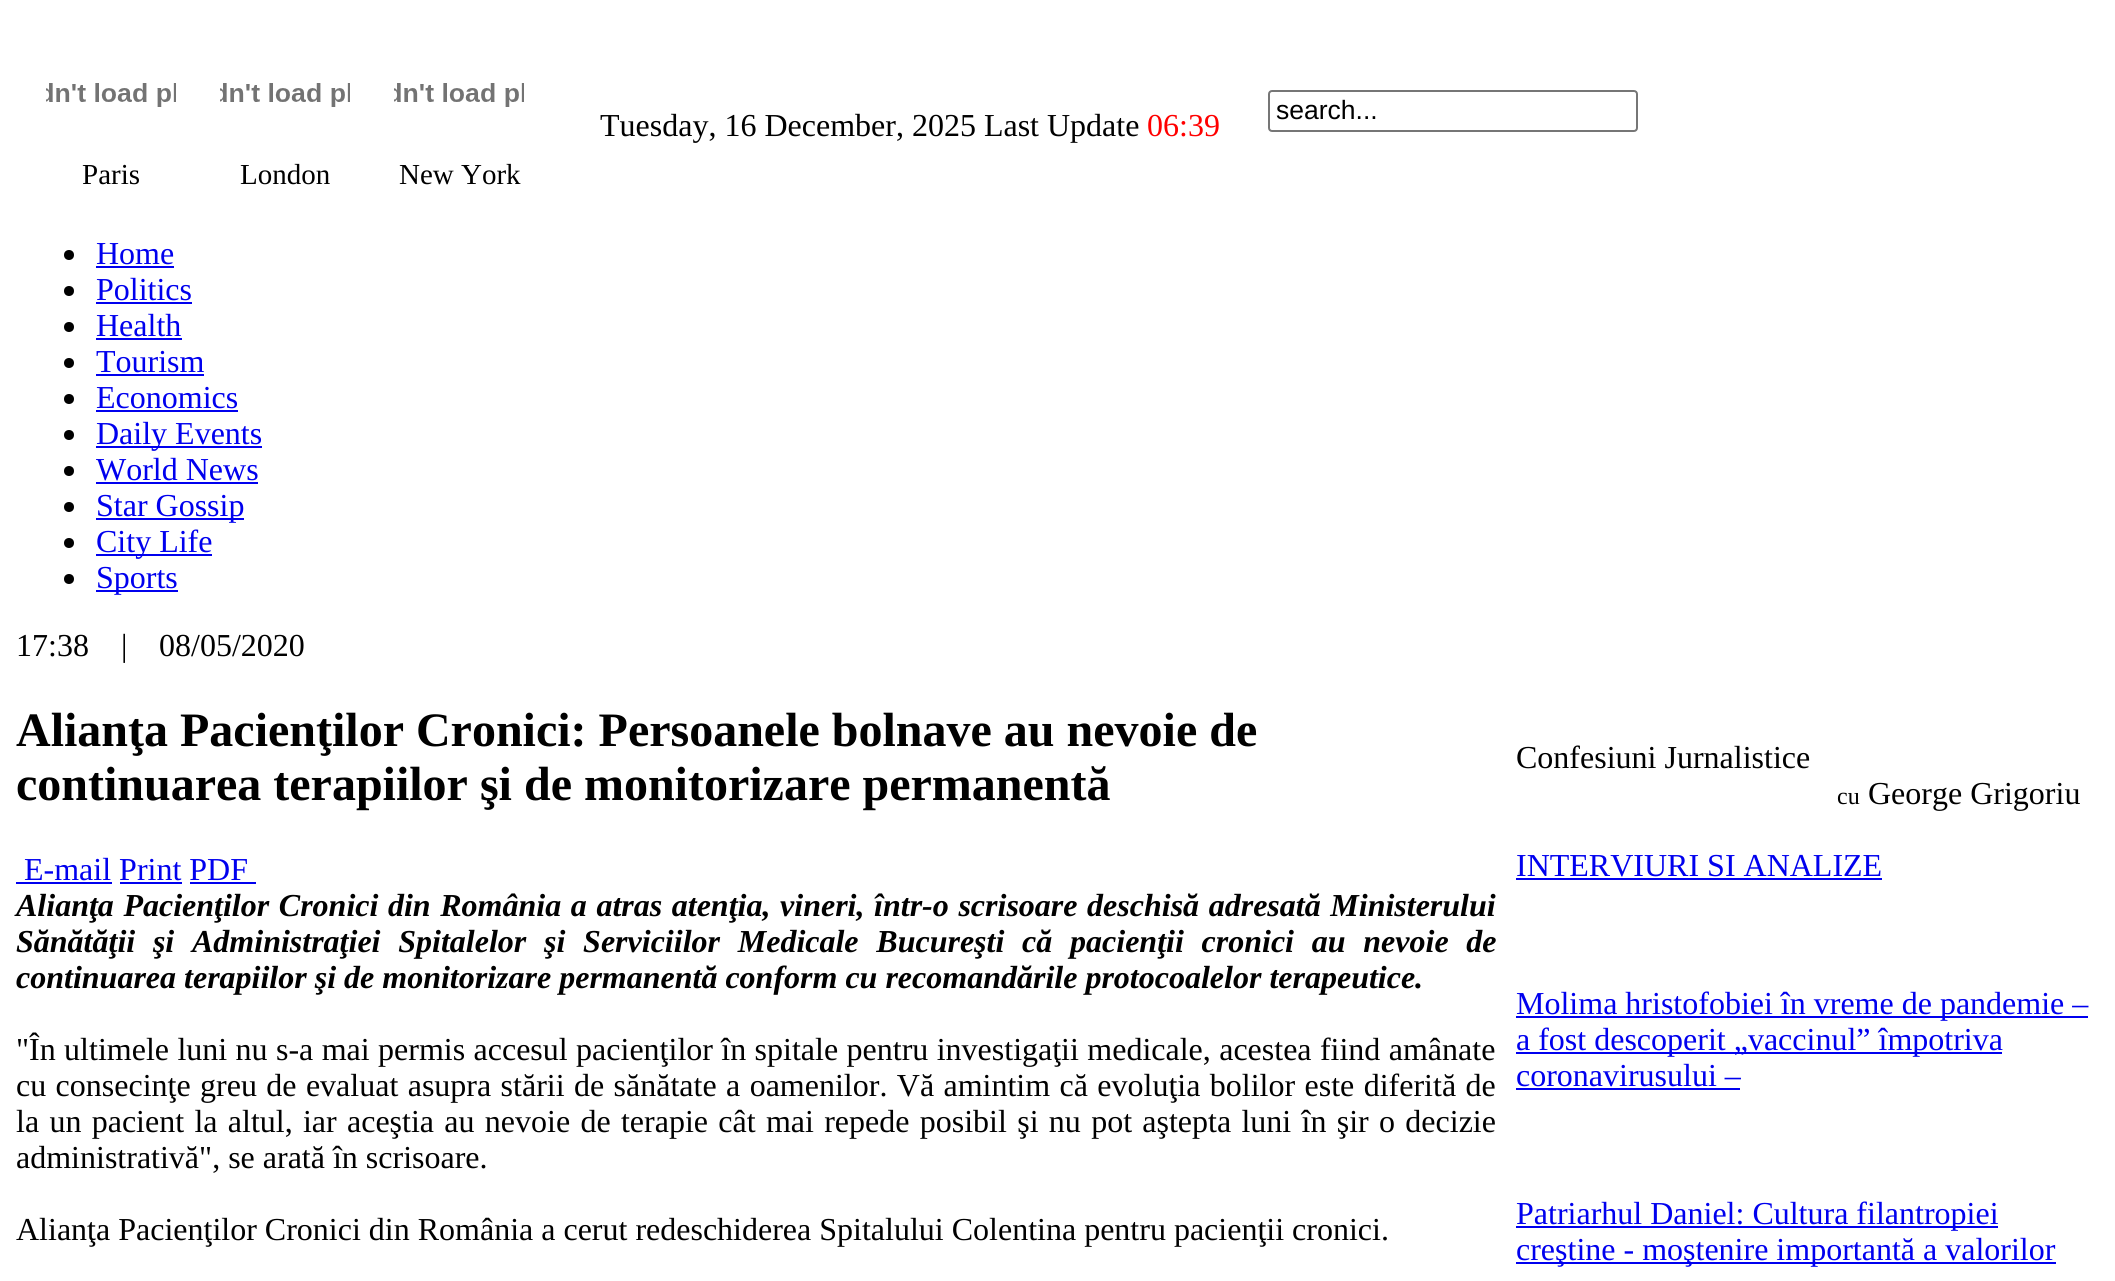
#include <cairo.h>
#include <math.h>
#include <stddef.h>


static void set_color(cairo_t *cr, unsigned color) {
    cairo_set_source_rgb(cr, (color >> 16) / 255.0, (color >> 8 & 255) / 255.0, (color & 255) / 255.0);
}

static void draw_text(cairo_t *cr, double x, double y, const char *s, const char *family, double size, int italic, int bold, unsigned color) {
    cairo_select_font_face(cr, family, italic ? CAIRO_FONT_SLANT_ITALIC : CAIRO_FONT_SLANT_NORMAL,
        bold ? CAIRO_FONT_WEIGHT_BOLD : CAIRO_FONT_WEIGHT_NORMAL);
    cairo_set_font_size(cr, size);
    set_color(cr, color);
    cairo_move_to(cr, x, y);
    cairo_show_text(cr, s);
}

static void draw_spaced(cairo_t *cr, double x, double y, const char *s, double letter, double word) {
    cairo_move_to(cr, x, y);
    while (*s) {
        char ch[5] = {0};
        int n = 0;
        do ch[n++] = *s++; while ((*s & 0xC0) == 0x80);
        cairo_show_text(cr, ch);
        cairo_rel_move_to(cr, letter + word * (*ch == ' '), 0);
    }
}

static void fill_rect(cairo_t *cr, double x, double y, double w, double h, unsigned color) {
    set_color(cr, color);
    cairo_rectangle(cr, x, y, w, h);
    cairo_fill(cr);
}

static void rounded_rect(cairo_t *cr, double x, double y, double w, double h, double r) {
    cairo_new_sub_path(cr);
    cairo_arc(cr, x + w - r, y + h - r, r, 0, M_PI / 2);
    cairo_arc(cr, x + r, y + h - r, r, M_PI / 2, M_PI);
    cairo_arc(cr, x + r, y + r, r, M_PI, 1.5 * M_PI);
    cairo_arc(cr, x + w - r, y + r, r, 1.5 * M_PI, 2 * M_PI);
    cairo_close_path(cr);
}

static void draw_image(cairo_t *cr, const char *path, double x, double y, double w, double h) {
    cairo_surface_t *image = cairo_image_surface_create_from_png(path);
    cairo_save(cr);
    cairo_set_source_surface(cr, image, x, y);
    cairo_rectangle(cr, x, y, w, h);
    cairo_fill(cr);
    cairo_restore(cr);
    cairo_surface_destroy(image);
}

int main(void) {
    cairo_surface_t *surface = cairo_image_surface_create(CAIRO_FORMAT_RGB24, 2115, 1281);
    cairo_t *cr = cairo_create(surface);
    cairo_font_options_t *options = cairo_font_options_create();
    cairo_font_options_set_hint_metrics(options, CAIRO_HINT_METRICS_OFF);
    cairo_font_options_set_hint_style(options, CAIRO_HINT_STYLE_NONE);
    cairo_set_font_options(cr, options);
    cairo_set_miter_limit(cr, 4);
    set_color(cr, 0xFFFFFF);
    cairo_paint(cr);
    rounded_rect(cr, 1269, 91, 368, 40, 3);
    set_color(cr, 0x767676);
    cairo_stroke(cr);
    draw_text(cr, 1276, 119, "search...", "Liberation Sans", 26.5, 0, 0, 0x000000);
    draw_text(cr, 600, 136, "Tuesday, 16 December, 2025 Last Update", "Liberation Serif", 32, 0, 0, 0x000000);
    draw_text(cr, 1147, 136, "06:39", "Liberation Serif", 32, 0, 0, 0xFF0000);
    draw_image(cr, "assets/img1.png", 46, 83, 130, 24);
    draw_text(cr, 82, 184, "Paris", "Liberation Serif", 29, 0, 0, 0x000000);
    draw_image(cr, "assets/img1.png", 220, 83, 130, 24);
    draw_text(cr, 240, 184, "London", "Liberation Serif", 29, 0, 0, 0x000000);
    draw_image(cr, "assets/img1.png", 394, 83, 130, 24);
    draw_text(cr, 399, 184, "New York", "Liberation Serif", 29, 0, 0, 0x000000);
    cairo_new_path(cr);
    cairo_arc(cr, 69, 255, 5, 0, 2 * M_PI);
    cairo_fill(cr);
    draw_text(cr, 96, 264, "Home", "Liberation Serif", 32, 0, 0, 0x0000EE);
    fill_rect(cr, 96, 266, 78, 2, 0x0000EE);
    set_color(cr, 0x000000);
    cairo_new_path(cr);
    cairo_arc(cr, 69, 291, 5, 0, 2 * M_PI);
    cairo_fill(cr);
    draw_text(cr, 96, 300, "Politics", "Liberation Serif", 32, 0, 0, 0x0000EE);
    fill_rect(cr, 96, 302, 96, 2, 0x0000EE);
    set_color(cr, 0x000000);
    cairo_new_path(cr);
    cairo_arc(cr, 69, 327, 5, 0, 2 * M_PI);
    cairo_fill(cr);
    draw_text(cr, 96, 336, "Health", "Liberation Serif", 32, 0, 0, 0x0000EE);
    fill_rect(cr, 96, 338, 86, 2, 0x0000EE);
    set_color(cr, 0x000000);
    cairo_new_path(cr);
    cairo_arc(cr, 69, 363, 5, 0, 2 * M_PI);
    cairo_fill(cr);
    draw_text(cr, 96, 372, "Tourism", "Liberation Serif", 32, 0, 0, 0x0000EE);
    fill_rect(cr, 96, 374, 108, 2, 0x0000EE);
    set_color(cr, 0x000000);
    cairo_new_path(cr);
    cairo_arc(cr, 69, 399, 5, 0, 2 * M_PI);
    cairo_fill(cr);
    draw_text(cr, 96, 408, "Economics", "Liberation Serif", 32, 0, 0, 0x0000EE);
    fill_rect(cr, 96, 410, 142, 2, 0x0000EE);
    set_color(cr, 0x000000);
    cairo_new_path(cr);
    cairo_arc(cr, 69, 435, 5, 0, 2 * M_PI);
    cairo_fill(cr);
    fill_rect(cr, 96, 446, 166, 2, 0x0000EE);
    draw_text(cr, 96, 444, "Daily Events", "Liberation Serif", 32, 0, 0, 0x0000EE);
    set_color(cr, 0x000000);
    cairo_new_path(cr);
    cairo_arc(cr, 69, 471, 5, 0, 2 * M_PI);
    cairo_fill(cr);
    draw_text(cr, 96, 480, "World News", "Liberation Serif", 32, 0, 0, 0x0000EE);
    fill_rect(cr, 96, 482, 162, 2, 0x0000EE);
    set_color(cr, 0x000000);
    cairo_new_path(cr);
    cairo_arc(cr, 69, 507, 5, 0, 2 * M_PI);
    cairo_fill(cr);
    fill_rect(cr, 96, 518, 148, 2, 0x0000EE);
    draw_text(cr, 96, 516, "Star Gossip", "Liberation Serif", 32, 0, 0, 0x0000EE);
    set_color(cr, 0x000000);
    cairo_new_path(cr);
    cairo_arc(cr, 69, 543, 5, 0, 2 * M_PI);
    cairo_fill(cr);
    fill_rect(cr, 96, 554, 116, 2, 0x0000EE);
    draw_text(cr, 96, 552, "City Life", "Liberation Serif", 32, 0, 0, 0x0000EE);
    set_color(cr, 0x000000);
    cairo_new_path(cr);
    cairo_arc(cr, 69, 579, 5, 0, 2 * M_PI);
    cairo_fill(cr);
    fill_rect(cr, 96, 590, 82, 2, 0x0000EE);
    draw_text(cr, 96, 588, "Sports", "Liberation Serif", 32, 0, 0, 0x0000EE);
    draw_text(cr, 16, 656, "17:38", "Liberation Serif", 32, 0, 0, 0x000000);
    draw_text(cr, 121, 656, "|", "Liberation Serif", 32, 0, 0, 0x000000);
    draw_text(cr, 159, 656, "08/05/2020", "Liberation Serif", 32, 0, 0, 0x000000);
    draw_text(cr, 16, 746, "Alianţa Pacienţilor Cronici: Persoanele bolnave au nevoie de", "Liberation Serif", 48, 0, 1, 0x000000);
    draw_text(cr, 16, 800, "continuarea terapiilor şi de monitorizare permanentă", "Liberation Serif", 48, 0, 1, 0x000000);
    draw_text(cr, 24, 880, "E-mail Print PDF", "Liberation Serif", 32, 0, 0, 0x0000EE);
    fill_rect(cr, 16, 882, 96, 2, 0x0000EE);
    fill_rect(cr, 120, 882, 62, 2, 0x0000EE);
    fill_rect(cr, 190, 882, 66, 2, 0x0000EE);
    cairo_select_font_face(cr, "Liberation Serif", CAIRO_FONT_SLANT_ITALIC, CAIRO_FONT_WEIGHT_BOLD);
    set_color(cr, 0x000000);
    draw_spaced(cr, 16, 916, "Alianţa Pacienţilor Cronici din România a atras atenţia, vineri, într-o scrisoare deschisă adresată Ministerului", 0, 1.6);
    draw_spaced(cr, 16, 952, "Sănătăţii şi Administraţiei Spitalelor şi Serviciilor Medicale Bucureşti că pacienţii cronici au nevoie de", 0, 9.75);
    draw_text(cr, 16, 988, "continuarea terapiilor şi de monitorizare permanentă conform cu recomandările protocoalelor terapeutice.", "Liberation Serif", 32, 1, 1, 0x000000);
    cairo_select_font_face(cr, "Liberation Serif", CAIRO_FONT_SLANT_NORMAL, CAIRO_FONT_WEIGHT_NORMAL);
    draw_spaced(cr, 16, 1060, "\"În ultimele luni nu s-a mai permis accesul pacienţilor în spitale pentru investigaţii medicale, acestea fiind amânate", 0, 0.4);
    draw_spaced(cr, 16, 1096, "cu consecinţe greu de evaluat asupra stării de sănătate a oamenilor. Vă amintim că evoluţia bolilor este diferită de", 0, 1.4);
    draw_spaced(cr, 16, 1132, "la un pacient la altul, iar aceştia au nevoie de terapie cât mai repede posibil şi nu pot aştepta luni în şir o decizie", 0, 2.3);
    draw_text(cr, 16, 1168, "administrativă\", se arată în scrisoare.", "Liberation Serif", 32, 0, 0, 0x000000);
    draw_text(cr, 16, 1240, "Alianţa Pacienţilor Cronici din România a cerut redeschiderea Spitalului Colentina pentru pacienţii cronici.", "Liberation Serif", 32, 0, 0, 0x000000);
    draw_text(cr, 1516, 768, "Confesiuni Jurnalistice", "Liberation Serif", 32, 0, 0, 0x000000);
    draw_text(cr, 1837, 804, "cu", "Liberation Serif", 24, 0, 0, 0x000000);
    draw_text(cr, 1868, 804, "George Grigoriu", "Liberation Serif", 32, 0, 0, 0x000000);
    draw_text(cr, 1516, 876, "INTERVIURI SI ANALIZE", "Liberation Serif", 32, 0, 0, 0x0000EE);
    fill_rect(cr, 1516, 878, 366, 2, 0x0000EE);
    fill_rect(cr, 1516, 1016, 572, 2, 0x0000EE);
    draw_text(cr, 1516, 1014, "Molima hristofobiei în vreme de pandemie –", "Liberation Serif", 32, 0, 0, 0x0000EE);
    fill_rect(cr, 1516, 1052, 486, 2, 0x0000EE);
    draw_text(cr, 1516, 1050, "a fost descoperit „vaccinul” împotriva", "Liberation Serif", 32, 0, 0, 0x0000EE);
    draw_text(cr, 1516, 1086, "coronavirusului –", "Liberation Serif", 32, 0, 0, 0x0000EE);
    fill_rect(cr, 1516, 1088, 224, 2, 0x0000EE);
    fill_rect(cr, 1516, 1226, 482, 2, 0x0000EE);
    draw_text(cr, 1516, 1224, "Patriarhul Daniel: Cultura filantropiei", "Liberation Serif", 32, 0, 0, 0x0000EE);
    fill_rect(cr, 1516, 1262, 540, 2, 0x0000EE);
    draw_text(cr, 1516, 1260, "creştine - moştenire importantă a valorilor", "Liberation Serif", 32, 0, 0, 0x0000EE);
    cairo_surface_write_to_png(surface, "output.png");
    cairo_font_options_destroy(options);
    cairo_destroy(cr);
    cairo_surface_destroy(surface);
    return 0;
}
